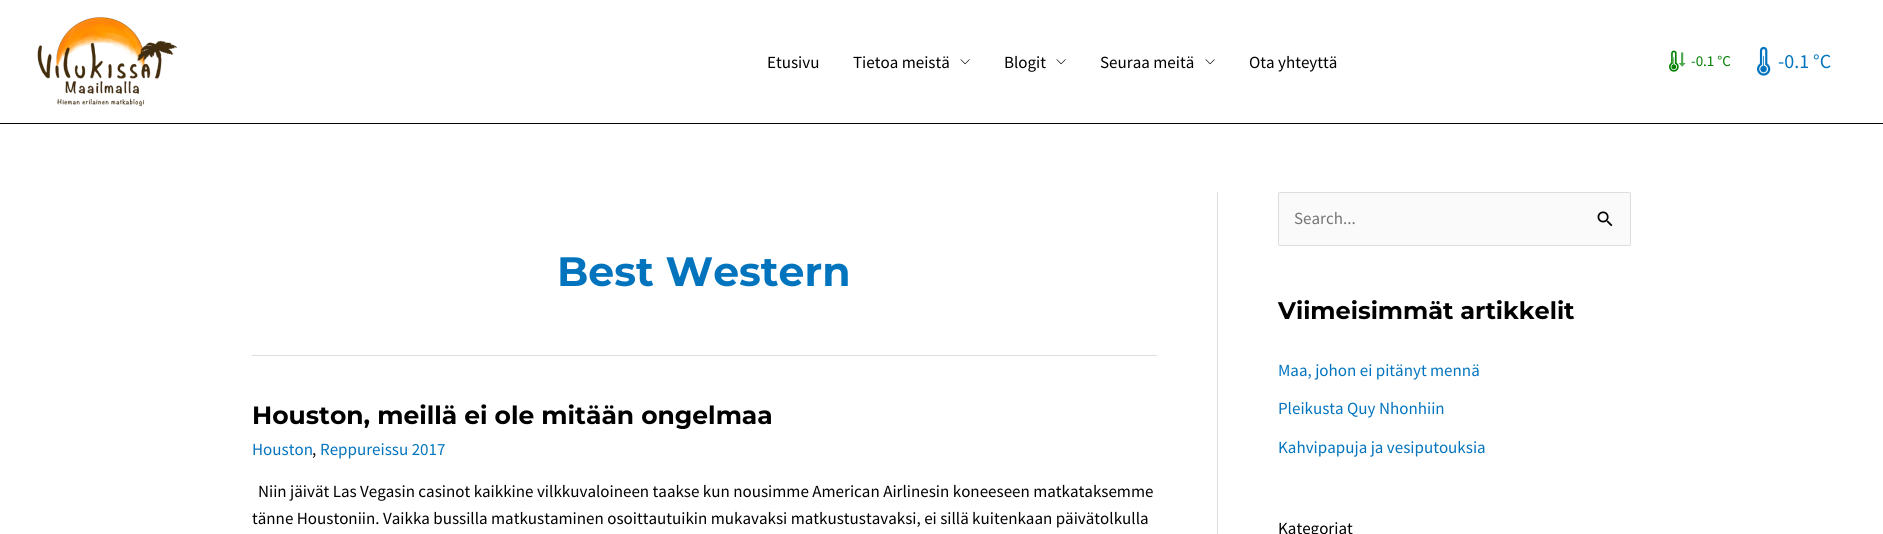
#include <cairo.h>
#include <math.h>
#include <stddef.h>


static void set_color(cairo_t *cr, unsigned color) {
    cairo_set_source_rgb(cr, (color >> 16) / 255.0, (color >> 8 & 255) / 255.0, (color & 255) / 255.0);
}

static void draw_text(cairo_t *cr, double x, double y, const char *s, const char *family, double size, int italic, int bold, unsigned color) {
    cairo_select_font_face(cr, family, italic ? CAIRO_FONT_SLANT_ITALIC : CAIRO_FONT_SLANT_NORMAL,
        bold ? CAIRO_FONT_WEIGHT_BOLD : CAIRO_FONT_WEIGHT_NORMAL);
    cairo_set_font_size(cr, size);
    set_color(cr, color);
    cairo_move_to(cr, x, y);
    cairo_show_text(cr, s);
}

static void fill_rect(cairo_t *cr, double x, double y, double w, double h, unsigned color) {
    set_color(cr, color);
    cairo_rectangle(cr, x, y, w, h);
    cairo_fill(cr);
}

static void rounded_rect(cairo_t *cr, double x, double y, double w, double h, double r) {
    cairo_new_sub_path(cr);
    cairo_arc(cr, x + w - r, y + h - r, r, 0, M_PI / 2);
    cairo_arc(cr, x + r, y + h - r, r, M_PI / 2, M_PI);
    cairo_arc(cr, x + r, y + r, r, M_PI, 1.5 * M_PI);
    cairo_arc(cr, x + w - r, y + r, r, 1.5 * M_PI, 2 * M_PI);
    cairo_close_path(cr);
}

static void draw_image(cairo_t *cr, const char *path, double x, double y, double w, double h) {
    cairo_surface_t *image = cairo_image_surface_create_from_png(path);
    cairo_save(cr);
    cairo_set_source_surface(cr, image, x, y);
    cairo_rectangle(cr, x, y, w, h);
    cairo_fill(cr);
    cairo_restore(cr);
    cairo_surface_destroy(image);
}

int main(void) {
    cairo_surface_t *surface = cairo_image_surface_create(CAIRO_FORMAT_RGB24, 1883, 534);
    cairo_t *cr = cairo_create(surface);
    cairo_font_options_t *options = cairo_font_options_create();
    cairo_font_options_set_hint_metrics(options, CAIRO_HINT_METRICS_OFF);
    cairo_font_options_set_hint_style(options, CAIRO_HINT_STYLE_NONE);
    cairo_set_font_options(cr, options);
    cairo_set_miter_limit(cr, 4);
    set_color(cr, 0xFFFFFF);
    cairo_paint(cr);
    fill_rect(cr, 0, 123, 1883, 1, 0x050505);
    draw_image(cr, "assets/img1.png", 37, 17, 140, 89);
    draw_text(cr, 767, 68, "Etusivu", "Source Sans Pro", 17, 0, 0, 0x000000);
    draw_text(cr, 853, 68, "Tietoa meistä", "Source Sans Pro", 17, 0, 0, 0x000000);
    draw_image(cr, "assets/img2.png", 960, 59, 10, 6);
    draw_text(cr, 1004, 68, "Blogit", "Source Sans Pro", 17, 0, 0, 0x000000);
    draw_image(cr, "assets/img2.png", 1056, 59, 10, 6);
    draw_text(cr, 1100, 68, "Seuraa meitä", "Source Sans Pro", 17, 0, 0, 0x000000);
    draw_image(cr, "assets/img2.png", 1205, 59, 10, 6);
    draw_text(cr, 1249, 68, "Ota yhteyttä", "Source Sans Pro", 17, 0, 0, 0x000000);
    draw_image(cr, "assets/img3.png", 1669, 50, 10, 22);
    draw_image(cr, "assets/img4.png", 1679, 52, 7, 15);
    draw_text(cr, 1691, 66, "-0.1 °C", "Source Sans Pro", 15, 0, 0, 0x008000);
    draw_image(cr, "assets/img5.png", 1757, 46, 14, 30);
    draw_text(cr, 1778, 68, "-0.1 °C", "Source Sans Pro", 20, 0, 0, 0x0274BE);
    fill_rect(cr, 1217, 192, 1, 342, 0xDDDDDD);
    fill_rect(cr, 252, 355, 905, 1, 0xDDDDDD);
    draw_text(cr, 557, 286, "Best Western", "Montserrat Thin", 41, 0, 0, 0x0274BE);
    draw_text(cr, 252, 424, "Houston, meillä ei ole mitään ongelmaa", "Montserrat Thin", 25, 0, 0, 0x000000);
    draw_text(cr, 252, 455, "Houston", "Source Sans Pro", 17, 0, 0, 0x0274BE);
    draw_text(cr, 312, 455, ",", "Source Sans Pro", 17, 0, 0, 0x000000);
    draw_text(cr, 320, 455, "Reppureissu 2017", "Source Sans Pro", 17, 0, 0, 0x0274BE);
    draw_text(cr, 258, 497, "Niin jäivät Las Vegasin casinot kaikkine vilkkuvaloineen taakse kun nousimme American Airlinesin koneeseen matkataksemme", "Source Sans Pro", 17, 0, 0, 0x000000);
    draw_text(cr, 252, 524, "tänne Houstoniin. Vaikka bussilla matkustaminen osoittautuikin mukavaksi matkustustavaksi, ei sillä kuitenkaan päivätolkulla", "Source Sans Pro", 17, 0, 0, 0x000000);
    set_color(cr, 0xFAFAFA);
    rounded_rect(cr, 1278.5, 192.5, 352, 53, 1.5);
    cairo_fill_preserve(cr);
    set_color(cr, 0xDDDDDD);
    cairo_set_line_width(cr, 1);
    cairo_stroke(cr);
    draw_text(cr, 1294, 224, "Search...", "Source Sans Pro", 17, 0, 0, 0x757575);
    draw_image(cr, "assets/img6.png", 1597, 211, 16, 16);
    draw_text(cr, 1278, 319, "Viimeisimmät artikkelit", "Montserrat Thin", 24, 0, 0, 0x000000);
    draw_text(cr, 1278, 376, "Maa, johon ei pitänyt mennä", "Source Sans Pro", 17, 0, 0, 0x0274BE);
    draw_text(cr, 1278, 414, "Pleikusta Quy Nhonhiin", "Source Sans Pro", 17, 0, 0, 0x0274BE);
    draw_text(cr, 1278, 453, "Kahvipapuja ja vesiputouksia", "Source Sans Pro", 17, 0, 0, 0x0274BE);
    draw_text(cr, 1278, 534, "Kategoriat", "Source Sans Pro", 17, 0, 0, 0x000000);
    cairo_surface_write_to_png(surface, "output.png");
    cairo_font_options_destroy(options);
    cairo_destroy(cr);
    cairo_surface_destroy(surface);
    return 0;
}
